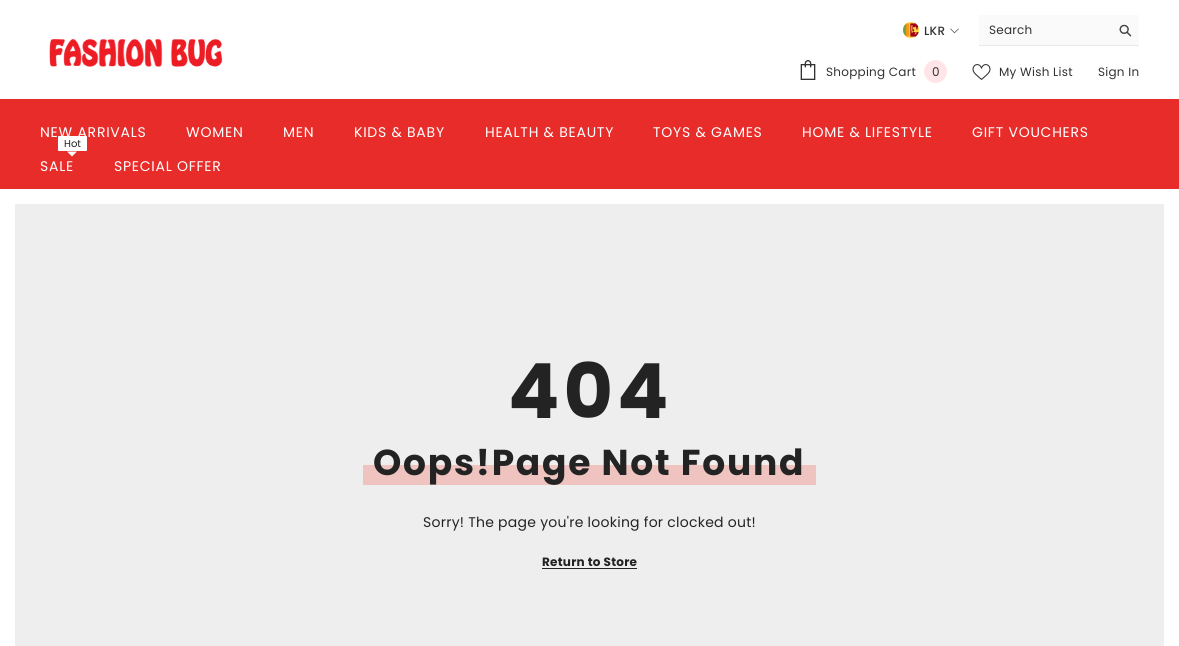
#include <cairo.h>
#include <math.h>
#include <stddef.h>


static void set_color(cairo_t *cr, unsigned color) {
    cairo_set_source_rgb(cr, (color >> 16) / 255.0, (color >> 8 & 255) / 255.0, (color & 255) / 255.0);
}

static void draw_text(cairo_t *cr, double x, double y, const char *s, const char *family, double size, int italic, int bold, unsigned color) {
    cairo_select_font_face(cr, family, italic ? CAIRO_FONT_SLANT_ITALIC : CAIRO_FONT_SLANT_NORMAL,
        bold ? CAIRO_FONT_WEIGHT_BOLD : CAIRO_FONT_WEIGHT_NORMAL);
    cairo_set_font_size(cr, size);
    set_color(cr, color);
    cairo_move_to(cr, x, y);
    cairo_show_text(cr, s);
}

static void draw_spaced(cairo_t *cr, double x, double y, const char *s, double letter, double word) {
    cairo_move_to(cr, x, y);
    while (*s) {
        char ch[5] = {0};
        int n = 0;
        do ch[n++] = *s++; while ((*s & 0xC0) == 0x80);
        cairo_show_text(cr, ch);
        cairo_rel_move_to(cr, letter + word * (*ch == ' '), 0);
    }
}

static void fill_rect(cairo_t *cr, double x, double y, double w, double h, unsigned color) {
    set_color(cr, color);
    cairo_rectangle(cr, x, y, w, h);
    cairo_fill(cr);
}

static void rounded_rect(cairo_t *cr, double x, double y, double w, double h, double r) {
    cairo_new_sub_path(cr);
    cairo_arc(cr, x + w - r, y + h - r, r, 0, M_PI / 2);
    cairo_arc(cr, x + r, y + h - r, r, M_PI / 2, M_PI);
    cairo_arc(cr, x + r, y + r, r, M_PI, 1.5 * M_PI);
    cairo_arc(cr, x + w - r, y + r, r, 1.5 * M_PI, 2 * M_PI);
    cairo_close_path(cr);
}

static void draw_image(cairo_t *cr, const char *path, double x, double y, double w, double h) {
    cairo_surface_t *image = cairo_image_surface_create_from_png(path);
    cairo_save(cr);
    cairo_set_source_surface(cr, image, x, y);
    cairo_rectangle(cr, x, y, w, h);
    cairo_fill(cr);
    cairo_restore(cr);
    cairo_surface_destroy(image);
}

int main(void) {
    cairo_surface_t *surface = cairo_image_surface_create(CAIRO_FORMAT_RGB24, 1179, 646);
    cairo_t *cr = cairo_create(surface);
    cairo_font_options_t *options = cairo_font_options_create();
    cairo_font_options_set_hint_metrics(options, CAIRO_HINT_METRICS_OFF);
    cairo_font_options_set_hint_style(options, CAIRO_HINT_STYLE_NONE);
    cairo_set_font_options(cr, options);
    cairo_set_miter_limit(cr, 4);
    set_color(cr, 0xFFFFFF);
    cairo_paint(cr);
    draw_image(cr, "assets/img1.png", 903, 22, 16, 16);
    cairo_select_font_face(cr, "Poppins Medium", CAIRO_FONT_SLANT_NORMAL, CAIRO_FONT_WEIGHT_NORMAL);
    cairo_set_font_size(cr, 12);
    set_color(cr, 0x323232);
    draw_spaced(cr, 924, 35, "LKR", 0.25, 0);
    draw_image(cr, "assets/img2.png", 950, 28, 9, 6);
    fill_rect(cr, 979, 15, 160, 30, 0xFAFAFA);
    fill_rect(cr, 979, 45, 160, 1, 0xE7E7E7);
    cairo_select_font_face(cr, "Poppins", CAIRO_FONT_SLANT_NORMAL, CAIRO_FONT_WEIGHT_NORMAL);
    set_color(cr, 0x323232);
    draw_spaced(cr, 989, 34, "Search", 0.25, 0);
    draw_image(cr, "assets/img3.png", 1119, 24, 13, 13);
    draw_image(cr, "assets/img4.png", 49, 39, 174, 28);
    draw_image(cr, "assets/img5.png", 800, 60, 16, 20);
    draw_spaced(cr, 826, 76, "Shopping Cart", 0.25, 0);
    set_color(cr, 0xFFE5E8);
    cairo_new_path(cr);
    cairo_arc(cr, 935.5, 71.5, 11.5, 0, 2 * M_PI);
    cairo_fill(cr);
    draw_text(cr, 932, 76, "0", "Poppins", 12, 0, 0, 0x323232);
    draw_image(cr, "assets/img6.png", 972, 64, 19, 16);
    draw_spaced(cr, 999, 76, "My Wish List", 0.25, 0);
    draw_spaced(cr, 1098, 76, "Sign In", 0.25, 0);
    fill_rect(cr, 0, 99, 1179, 90, 0xE82C2A);
    cairo_set_font_size(cr, 14);
    set_color(cr, 0xFFFFFF);
    draw_spaced(cr, 40, 137, "NEW ARRIVALS", 0.75, 0);
    draw_spaced(cr, 186, 137, "WOMEN", 0.75, 0);
    draw_spaced(cr, 283, 137, "MEN", 0.75, 0);
    draw_spaced(cr, 354, 137, "KIDS & BABY", 0.75, 0);
    draw_spaced(cr, 485, 137, "HEALTH & BEAUTY", 0.75, 0);
    draw_spaced(cr, 653, 137, "TOYS & GAMES", 0.75, 0);
    draw_spaced(cr, 802, 137, "HOME & LIFESTYLE", 0.75, 0);
    draw_spaced(cr, 972, 137, "GIFT VOUCHERS", 0.75, 0);
    rounded_rect(cr, 58, 136, 29, 15, 1);
    cairo_fill(cr);
    draw_text(cr, 64, 147, "Hot", "Poppins", 10, 0, 0, 0x232323);
    set_color(cr, 0xFFFFFF);
    cairo_new_path(cr);
    cairo_move_to(cr, 67, 151.5);
    cairo_line_to(cr, 77, 151.5);
    cairo_line_to(cr, 72, 156.5);
    cairo_close_path(cr);
    cairo_fill(cr);
    cairo_set_font_size(cr, 14);
    draw_spaced(cr, 40, 171, "SALE", 0.75, 0);
    draw_spaced(cr, 114, 171, "SPECIAL OFFER", 0.75, 0);
    fill_rect(cr, 15, 204, 1149, 442, 0xEEEEEE);
    cairo_select_font_face(cr, "Poppins", CAIRO_FONT_SLANT_NORMAL, CAIRO_FONT_WEIGHT_BOLD);
    cairo_set_font_size(cr, 76);
    set_color(cr, 0x232323);
    draw_spaced(cr, 508, 418, "404", 4, 0);
    fill_rect(cr, 363, 465, 453, 20, 0xEFC3C0);
    cairo_set_font_size(cr, 36);
    set_color(cr, 0x232323);
    draw_spaced(cr, 373, 475, "Oops!Page Not Found", 1.75, 0);
    cairo_select_font_face(cr, "Poppins", CAIRO_FONT_SLANT_NORMAL, CAIRO_FONT_WEIGHT_NORMAL);
    cairo_set_font_size(cr, 14);
    draw_spaced(cr, 423, 527, "Sorry! The page you're looking for clocked out!", 0.25, 0);
    cairo_select_font_face(cr, "Poppins", CAIRO_FONT_SLANT_NORMAL, CAIRO_FONT_WEIGHT_BOLD);
    cairo_set_font_size(cr, 12);
    draw_spaced(cr, 542, 566, "Return to Store", 0.25, 0);
    fill_rect(cr, 542, 568, 95, 1, 0x232323);
    cairo_surface_write_to_png(surface, "output.png");
    cairo_font_options_destroy(options);
    cairo_destroy(cr);
    cairo_surface_destroy(surface);
    return 0;
}
